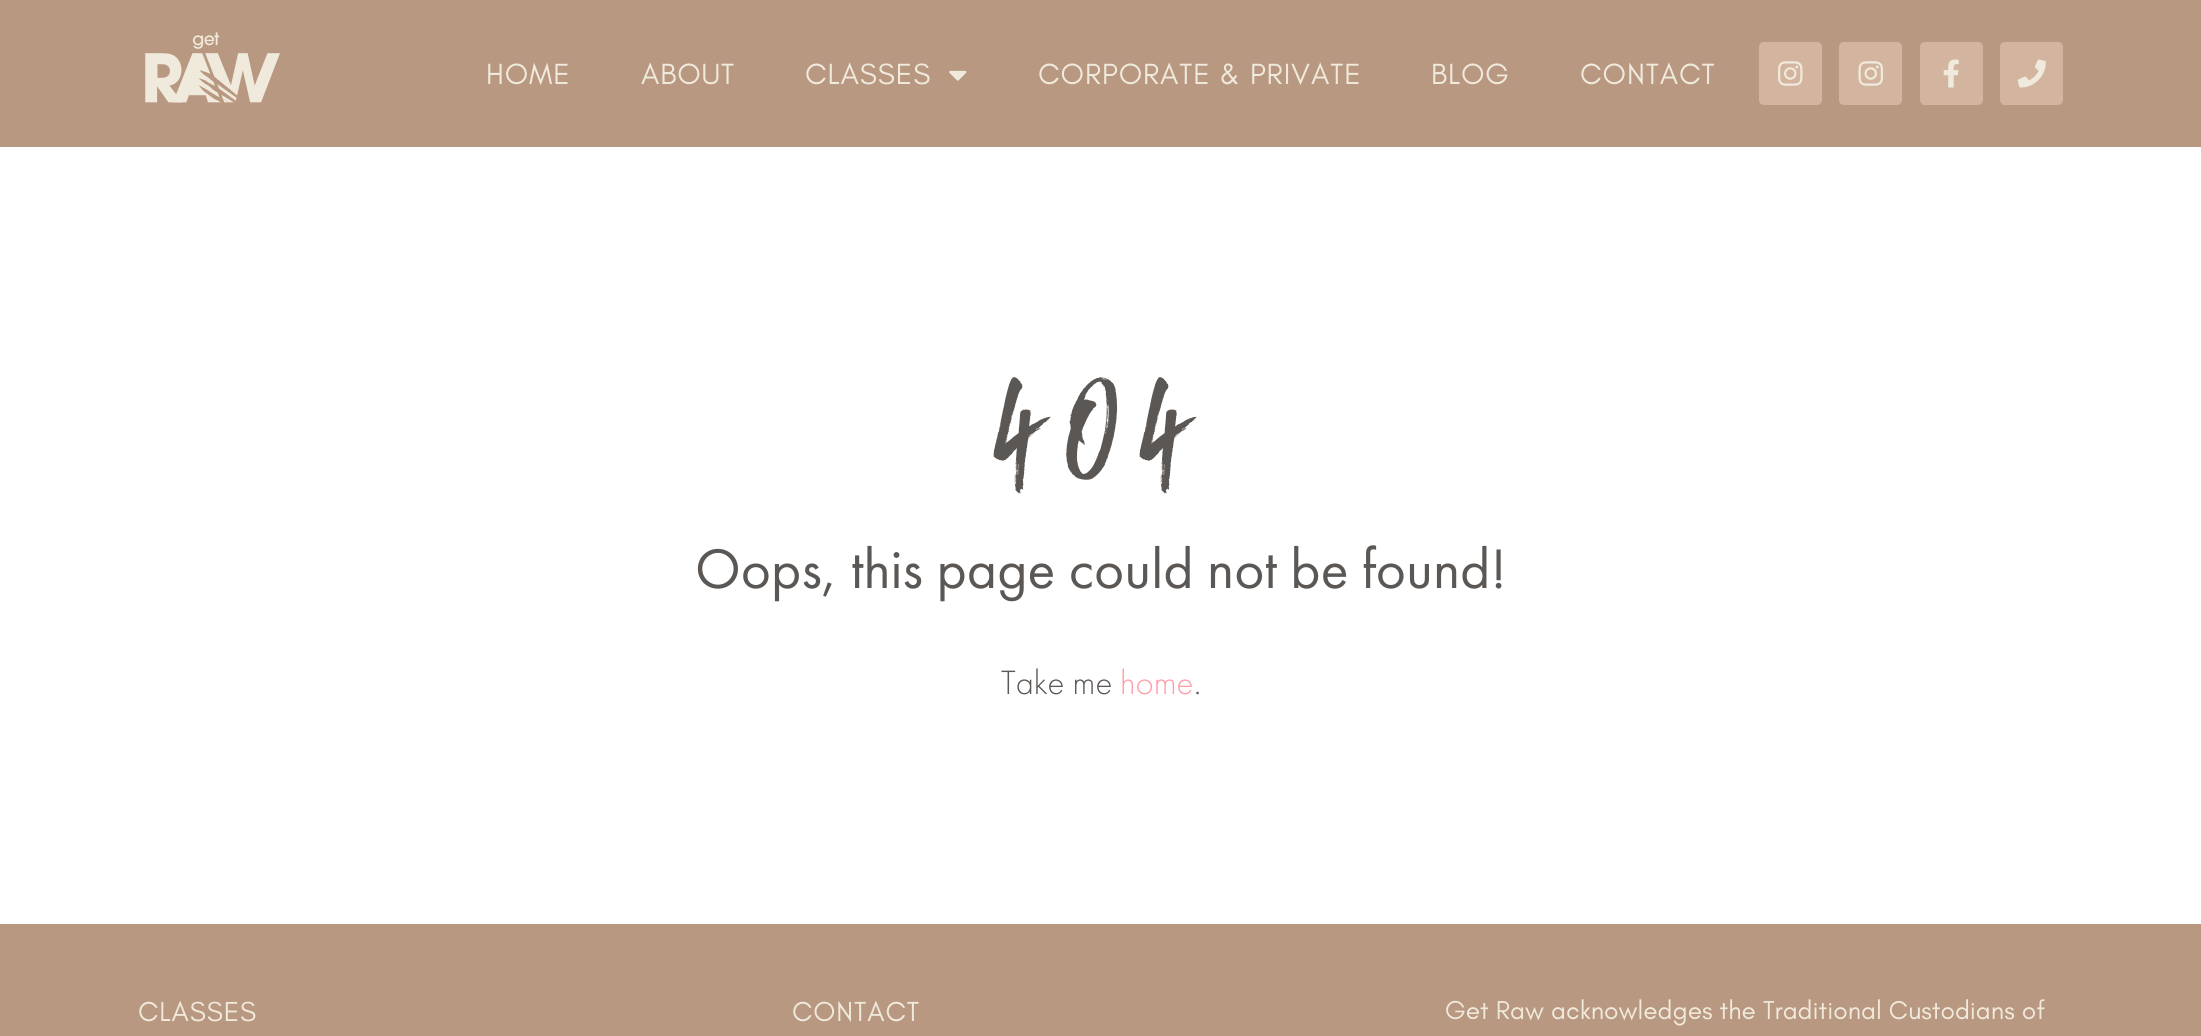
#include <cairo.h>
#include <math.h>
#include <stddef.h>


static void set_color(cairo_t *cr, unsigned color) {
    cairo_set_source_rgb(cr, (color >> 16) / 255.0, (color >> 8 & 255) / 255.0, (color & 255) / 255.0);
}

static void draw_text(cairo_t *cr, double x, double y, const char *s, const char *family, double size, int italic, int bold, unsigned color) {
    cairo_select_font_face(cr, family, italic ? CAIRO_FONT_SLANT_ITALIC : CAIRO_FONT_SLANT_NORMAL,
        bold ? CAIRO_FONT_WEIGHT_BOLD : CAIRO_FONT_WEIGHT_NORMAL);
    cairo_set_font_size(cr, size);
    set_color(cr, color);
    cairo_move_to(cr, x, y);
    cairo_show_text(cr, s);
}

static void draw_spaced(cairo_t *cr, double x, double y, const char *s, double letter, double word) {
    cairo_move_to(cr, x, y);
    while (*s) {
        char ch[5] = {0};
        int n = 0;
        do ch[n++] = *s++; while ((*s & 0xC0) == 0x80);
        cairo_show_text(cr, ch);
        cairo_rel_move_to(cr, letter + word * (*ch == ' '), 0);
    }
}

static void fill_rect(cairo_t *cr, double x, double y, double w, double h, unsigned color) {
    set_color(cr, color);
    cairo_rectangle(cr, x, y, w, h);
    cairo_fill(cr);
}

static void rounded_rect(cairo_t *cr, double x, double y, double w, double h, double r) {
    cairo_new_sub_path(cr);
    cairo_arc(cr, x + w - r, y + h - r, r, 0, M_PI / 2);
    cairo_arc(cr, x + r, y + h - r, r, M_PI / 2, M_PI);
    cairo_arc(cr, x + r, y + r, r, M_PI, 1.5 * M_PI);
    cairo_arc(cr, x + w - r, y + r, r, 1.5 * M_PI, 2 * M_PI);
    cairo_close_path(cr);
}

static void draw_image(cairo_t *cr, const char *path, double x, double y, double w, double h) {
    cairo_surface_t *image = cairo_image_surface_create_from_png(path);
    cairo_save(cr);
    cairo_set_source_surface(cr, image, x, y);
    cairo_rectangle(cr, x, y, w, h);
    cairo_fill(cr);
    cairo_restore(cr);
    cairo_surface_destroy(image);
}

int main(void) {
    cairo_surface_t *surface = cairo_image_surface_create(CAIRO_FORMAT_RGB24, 2201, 1036);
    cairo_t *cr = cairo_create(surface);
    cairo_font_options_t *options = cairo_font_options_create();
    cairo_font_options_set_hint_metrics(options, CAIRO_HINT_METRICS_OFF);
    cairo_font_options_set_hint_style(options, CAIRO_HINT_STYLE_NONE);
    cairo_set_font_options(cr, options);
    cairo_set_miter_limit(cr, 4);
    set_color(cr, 0xFFFFFF);
    cairo_paint(cr);
    fill_rect(cr, 0, 0, 2201, 147, 0xB99881);
    draw_image(cr, "assets/img1.png", 145, 32, 135, 71);
    cairo_select_font_face(cr, "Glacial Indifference", CAIRO_FONT_SLANT_NORMAL, CAIRO_FONT_WEIGHT_NORMAL);
    cairo_set_font_size(cr, 29.75);
    set_color(cr, 0xF0EADD);
    draw_spaced(cr, 486, 84, "HOME", 0.9, 0);
    draw_spaced(cr, 641, 84, "ABOUT", 0.9, 0);
    draw_spaced(cr, 805, 84, "CLASSES", 0.9, 0);
    draw_image(cr, "assets/img2.png", 949, 70, 18, 11);
    draw_spaced(cr, 1038, 84, "CORPORATE & PRIVATE", 0.9, 0);
    draw_spaced(cr, 1431, 84, "BLOG", 0.9, 0);
    draw_spaced(cr, 1580, 84, "CONTACT", 0.9, 0);
    set_color(cr, 0xD3B59F);
    rounded_rect(cr, 1759, 42, 63, 63, 5);
    cairo_fill(cr);
    draw_image(cr, "assets/img3.png", 1778, 61, 25, 25);
    rounded_rect(cr, 1839, 42, 63, 63, 5);
    cairo_fill(cr);
    draw_image(cr, "assets/img4.png", 1858, 61, 25, 25);
    rounded_rect(cr, 1920, 42, 63, 63, 5);
    cairo_fill(cr);
    draw_image(cr, "assets/img5.png", 1943, 59, 16, 29);
    rounded_rect(cr, 2000, 42, 63, 63, 5);
    cairo_fill(cr);
    draw_image(cr, "assets/img6.png", 2017, 59, 29, 29);
    cairo_select_font_face(cr, "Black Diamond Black", CAIRO_FONT_SLANT_NORMAL, CAIRO_FONT_WEIGHT_NORMAL);
    cairo_set_font_size(cr, 133);
    set_color(cr, 0x5B5754);
    draw_spaced(cr, 991, 457, "404", 17.5, 0);
    draw_text(cr, 695, 588, "Oops, this page could not be found!", "Futura PT", 57.75, 0, 0, 0x5B5754);
    draw_text(cr, 1001, 694, "Take me", "Futura PT Light", 35, 0, 0, 0x5B5754);
    draw_text(cr, 1120, 694, "home", "Futura PT Light", 35, 0, 0, 0xFF9CA9);
    draw_text(cr, 1194, 694, ".", "Futura PT Light", 35, 0, 0, 0x5B5754);
    fill_rect(cr, 0, 924, 2201, 112, 0xB99881);
    cairo_select_font_face(cr, "Glacial Indifference", CAIRO_FONT_SLANT_NORMAL, CAIRO_FONT_WEIGHT_NORMAL);
    cairo_set_font_size(cr, 28);
    set_color(cr, 0xF0EADD);
    draw_spaced(cr, 138, 1021, "CLASSES", 0.9, 0);
    draw_spaced(cr, 792, 1021, "CONTACT", 0.9, 0);
    draw_text(cr, 1445, 1019, "Get Raw acknowledges the Traditional Custodians of", "Glacial Indifference", 26.25, 0, 0, 0xF0EADD);
    cairo_surface_write_to_png(surface, "output.png");
    cairo_font_options_destroy(options);
    cairo_destroy(cr);
    cairo_surface_destroy(surface);
    return 0;
}
